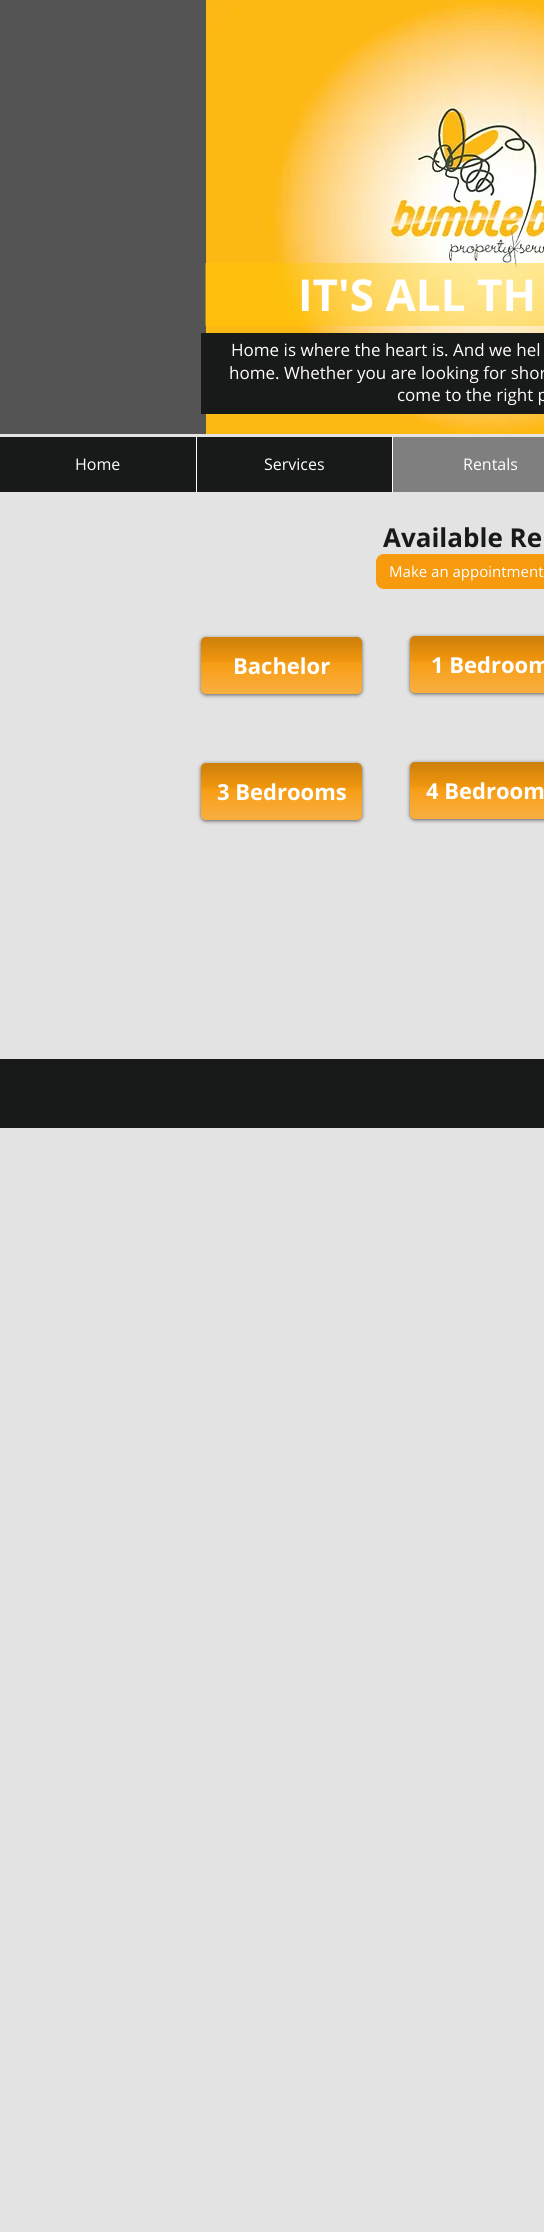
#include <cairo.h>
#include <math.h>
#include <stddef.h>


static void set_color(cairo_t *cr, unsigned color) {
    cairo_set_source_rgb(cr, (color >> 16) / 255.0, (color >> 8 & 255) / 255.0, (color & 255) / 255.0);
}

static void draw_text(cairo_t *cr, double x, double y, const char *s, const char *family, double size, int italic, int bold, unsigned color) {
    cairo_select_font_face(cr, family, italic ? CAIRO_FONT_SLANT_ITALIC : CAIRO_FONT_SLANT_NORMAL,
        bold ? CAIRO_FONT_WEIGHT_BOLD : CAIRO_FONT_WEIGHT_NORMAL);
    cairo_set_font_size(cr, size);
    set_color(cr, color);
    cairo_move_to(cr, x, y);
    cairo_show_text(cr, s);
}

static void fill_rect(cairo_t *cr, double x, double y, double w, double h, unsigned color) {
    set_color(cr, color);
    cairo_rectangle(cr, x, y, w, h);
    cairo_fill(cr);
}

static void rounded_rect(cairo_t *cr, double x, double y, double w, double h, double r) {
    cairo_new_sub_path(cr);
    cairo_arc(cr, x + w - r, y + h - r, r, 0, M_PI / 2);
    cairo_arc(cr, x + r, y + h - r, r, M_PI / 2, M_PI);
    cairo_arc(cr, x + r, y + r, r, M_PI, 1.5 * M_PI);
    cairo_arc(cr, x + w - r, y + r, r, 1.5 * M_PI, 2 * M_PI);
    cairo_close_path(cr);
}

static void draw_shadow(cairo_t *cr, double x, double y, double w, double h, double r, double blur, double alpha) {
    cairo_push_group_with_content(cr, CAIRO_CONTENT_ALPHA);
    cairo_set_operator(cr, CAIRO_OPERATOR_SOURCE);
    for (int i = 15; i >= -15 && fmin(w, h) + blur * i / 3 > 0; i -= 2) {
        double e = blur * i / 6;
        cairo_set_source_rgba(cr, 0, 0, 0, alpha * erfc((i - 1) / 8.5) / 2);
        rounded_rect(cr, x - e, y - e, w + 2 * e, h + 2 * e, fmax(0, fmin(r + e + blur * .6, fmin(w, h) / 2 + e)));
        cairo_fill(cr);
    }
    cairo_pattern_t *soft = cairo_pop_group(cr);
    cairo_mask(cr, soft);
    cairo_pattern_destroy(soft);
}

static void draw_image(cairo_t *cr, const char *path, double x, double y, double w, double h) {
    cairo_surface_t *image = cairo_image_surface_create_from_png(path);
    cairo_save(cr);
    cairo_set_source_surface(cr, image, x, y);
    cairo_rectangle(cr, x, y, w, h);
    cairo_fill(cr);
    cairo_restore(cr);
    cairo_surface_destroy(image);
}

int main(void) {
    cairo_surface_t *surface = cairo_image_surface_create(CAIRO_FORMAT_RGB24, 544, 2232);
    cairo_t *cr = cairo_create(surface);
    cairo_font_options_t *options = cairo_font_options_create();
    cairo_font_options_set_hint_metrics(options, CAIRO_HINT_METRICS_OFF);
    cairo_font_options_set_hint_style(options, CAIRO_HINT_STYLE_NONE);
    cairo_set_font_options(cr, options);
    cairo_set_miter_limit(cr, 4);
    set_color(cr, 0xE3E3E3);
    cairo_paint(cr);
    fill_rect(cr, 0, 0, 206, 434, 0x545454);
    draw_image(cr, "assets/img1.png", 206, 0, 338, 434);
    cairo_set_source_rgba(cr, 1, 0.796, 0.02, 0.42);
    cairo_rectangle(cr, 205, 263, 339, 63);
    cairo_fill(cr);
    draw_text(cr, 298, 311, "IT'S ALL TH", "Open Sans", 44, 0, 1, 0xFFFFFF);
    fill_rect(cr, 201, 333, 343, 81, 0x181919);
    draw_text(cr, 231, 356, "Home is where the heart is. And we hel", "Open Sans", 17, 0, 0, 0xFFFFFF);
    draw_text(cr, 229, 379, "home. Whether you are looking for shor", "Open Sans", 17, 0, 0, 0xFFFFFF);
    draw_text(cr, 397, 401, "come to the right p", "Open Sans", 17, 0, 0, 0xFFFFFF);
    fill_rect(cr, 0, 437, 392, 55, 0x181919);
    draw_text(cr, 75, 470, "Home", "Open Sans", 16, 0, 0, 0xFFFFFF);
    fill_rect(cr, 196, 437, 1, 55, 0xFFFFFF);
    draw_text(cr, 264, 470, "Services", "Open Sans", 16, 0, 0, 0xFFFFFF);
    fill_rect(cr, 393, 437, 151, 55, 0x7F7F7F);
    fill_rect(cr, 392, 437, 1, 55, 0xFFFFFF);
    draw_text(cr, 463, 470, "Rentals", "Open Sans", 16, 0, 0, 0xFFFFFF);
    draw_text(cr, 383, 547, "Available Re", "Open Sans", 26, 0, 1, 0x181919);
    set_color(cr, 0xF79A0E);
    rounded_rect(cr, 376, 554, 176, 35, 8);
    cairo_fill(cr);
    draw_text(cr, 389, 577, "Make an appointment", "Open Sans", 15, 0, 0, 0xFFFFFF);
    set_color(cr, 0x000000);
    draw_shadow(cr, 201, 638, 161, 57, 5, 2, 0.6);
    set_color(cr, 0xF79A0E);
    rounded_rect(cr, 201, 637, 161, 57, 5);
    cairo_fill(cr);
    draw_image(cr, "assets/img2.png", 201, 637, 161, 26);
    draw_image(cr, "assets/img3.png", 201, 661, 161, 33);
    draw_text(cr, 233, 674, "Bachelor", "Open Sans", 22, 0, 1, 0xFFFFFF);
    set_color(cr, 0x000000);
    draw_shadow(cr, 410, 637, 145, 57, 5, 2, 0.6);
    set_color(cr, 0xF79A0E);
    rounded_rect(cr, 410, 636, 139, 57, 5);
    cairo_fill(cr);
    draw_image(cr, "assets/img4.png", 410, 636, 134, 26);
    draw_image(cr, "assets/img5.png", 410, 660, 134, 33);
    draw_text(cr, 431, 673, "1 Bedroom", "Open Sans", 22, 0, 1, 0xFFFFFF);
    set_color(cr, 0x000000);
    draw_shadow(cr, 201, 764, 161, 57, 5, 2, 0.6);
    set_color(cr, 0xF79A0E);
    rounded_rect(cr, 201, 763, 161, 57, 5);
    cairo_fill(cr);
    draw_image(cr, "assets/img2.png", 201, 763, 161, 26);
    draw_image(cr, "assets/img3.png", 201, 787, 161, 33);
    draw_text(cr, 217, 800, "3 Bedrooms", "Open Sans", 22, 0, 1, 0xFFFFFF);
    set_color(cr, 0x000000);
    draw_shadow(cr, 410, 763, 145, 57, 5, 2, 0.6);
    set_color(cr, 0xF79A0E);
    rounded_rect(cr, 410, 762, 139, 57, 5);
    cairo_fill(cr);
    draw_image(cr, "assets/img4.png", 410, 762, 134, 26);
    draw_image(cr, "assets/img5.png", 410, 786, 134, 33);
    draw_text(cr, 426, 799, "4 Bedroom", "Open Sans", 22, 0, 1, 0xFFFFFF);
    fill_rect(cr, 0, 1059, 544, 69, 0x181919);
    cairo_surface_write_to_png(surface, "output.png");
    cairo_font_options_destroy(options);
    cairo_destroy(cr);
    cairo_surface_destroy(surface);
    return 0;
}
